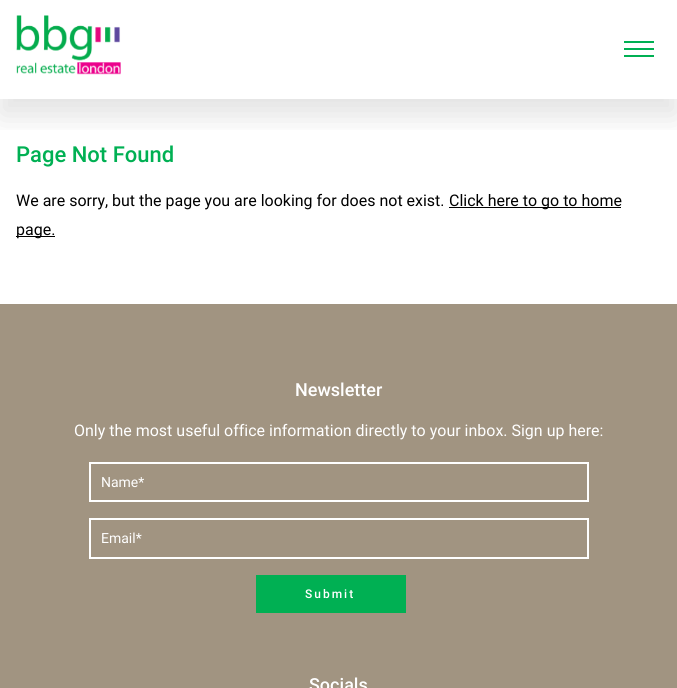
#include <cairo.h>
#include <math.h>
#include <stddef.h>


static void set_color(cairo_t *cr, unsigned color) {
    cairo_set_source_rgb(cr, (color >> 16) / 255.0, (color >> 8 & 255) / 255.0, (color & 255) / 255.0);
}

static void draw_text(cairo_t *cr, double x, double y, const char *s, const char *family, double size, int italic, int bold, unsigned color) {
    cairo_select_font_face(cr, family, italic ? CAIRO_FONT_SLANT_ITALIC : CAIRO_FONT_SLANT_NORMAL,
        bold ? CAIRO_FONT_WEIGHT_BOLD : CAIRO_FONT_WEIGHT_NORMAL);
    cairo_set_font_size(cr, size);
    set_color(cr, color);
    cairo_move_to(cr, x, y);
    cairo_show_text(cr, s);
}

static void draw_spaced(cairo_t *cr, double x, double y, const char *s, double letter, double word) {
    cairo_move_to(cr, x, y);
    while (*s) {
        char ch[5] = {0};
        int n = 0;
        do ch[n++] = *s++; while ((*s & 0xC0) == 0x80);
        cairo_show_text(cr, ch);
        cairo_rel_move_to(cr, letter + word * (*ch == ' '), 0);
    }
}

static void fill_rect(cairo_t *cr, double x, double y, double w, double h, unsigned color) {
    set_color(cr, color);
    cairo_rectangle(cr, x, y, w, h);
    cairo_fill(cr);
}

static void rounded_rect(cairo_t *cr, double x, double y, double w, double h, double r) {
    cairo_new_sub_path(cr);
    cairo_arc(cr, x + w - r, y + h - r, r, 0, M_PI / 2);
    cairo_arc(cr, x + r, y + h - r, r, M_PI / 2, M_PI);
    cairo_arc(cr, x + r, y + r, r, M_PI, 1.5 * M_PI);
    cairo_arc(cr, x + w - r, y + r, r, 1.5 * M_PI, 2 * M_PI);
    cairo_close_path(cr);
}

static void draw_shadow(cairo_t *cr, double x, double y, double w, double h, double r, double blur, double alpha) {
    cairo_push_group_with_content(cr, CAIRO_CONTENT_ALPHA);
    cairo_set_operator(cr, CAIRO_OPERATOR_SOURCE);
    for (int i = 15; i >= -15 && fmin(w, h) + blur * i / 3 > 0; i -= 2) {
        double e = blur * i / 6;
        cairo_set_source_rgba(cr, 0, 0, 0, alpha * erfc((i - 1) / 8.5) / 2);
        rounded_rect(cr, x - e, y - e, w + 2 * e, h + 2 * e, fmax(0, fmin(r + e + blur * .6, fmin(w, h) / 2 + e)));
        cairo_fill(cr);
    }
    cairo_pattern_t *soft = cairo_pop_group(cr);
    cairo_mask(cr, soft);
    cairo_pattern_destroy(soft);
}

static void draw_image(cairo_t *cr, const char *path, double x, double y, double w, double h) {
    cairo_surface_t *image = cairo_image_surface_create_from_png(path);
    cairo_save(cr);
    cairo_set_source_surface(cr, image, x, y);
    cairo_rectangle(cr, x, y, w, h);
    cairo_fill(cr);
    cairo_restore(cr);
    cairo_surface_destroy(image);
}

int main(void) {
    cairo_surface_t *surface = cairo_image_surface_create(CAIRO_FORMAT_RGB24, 677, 688);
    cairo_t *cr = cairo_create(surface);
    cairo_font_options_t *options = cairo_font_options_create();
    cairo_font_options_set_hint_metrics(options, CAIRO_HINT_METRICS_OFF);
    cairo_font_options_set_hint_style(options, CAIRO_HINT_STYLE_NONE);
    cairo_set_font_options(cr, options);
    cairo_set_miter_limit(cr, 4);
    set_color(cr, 0xFFFFFF);
    cairo_paint(cr);
    cairo_save(cr);
    cairo_rectangle(cr, 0, 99, 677, 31);
    cairo_clip(cr);
    set_color(cr, 0x000000);
    draw_shadow(cr, 0, 16, 677, 99, 0, 16, 0.12);
    cairo_restore(cr);
    draw_image(cr, "assets/img1.png", 16, 15, 105, 60);
    fill_rect(cr, 624, 41, 30, 2, 0x00B053);
    fill_rect(cr, 624, 48, 30, 2, 0x00B053);
    fill_rect(cr, 624, 55, 30, 2, 0x00B053);
    draw_text(cr, 16, 162, "Page Not Found", "Roboto Medium", 22, 0, 0, 0x00B053);
    draw_text(cr, 16, 206, "We are sorry, but the page you are looking for does not exist.", "Roboto", 16, 0, 0, 0x000000);
    fill_rect(cr, 449, 207, 172, 1, 0x000000);
    draw_text(cr, 449, 206, "Click here to go to home", "Roboto", 16, 0, 0, 0x000000);
    fill_rect(cr, 16, 236, 39, 1, 0x000000);
    draw_text(cr, 16, 235, "page.", "Roboto", 16, 0, 0, 0x000000);
    fill_rect(cr, 0, 304, 677, 384, 0xA19481);
    draw_text(cr, 295, 396, "Newsletter", "Roboto Medium", 18, 0, 0, 0xFFFFFF);
    draw_text(cr, 74, 436, "Only the most useful office information directly to your inbox. Sign up here:", "Roboto", 16, 0, 0, 0xFFFFFF);
    cairo_rectangle(cr, 90, 463, 498, 38);
    cairo_stroke(cr);
    draw_text(cr, 101, 487, "Name*", "Roboto", 14, 0, 0, 0xFFFFFF);
    cairo_rectangle(cr, 90, 519, 498, 39);
    cairo_stroke(cr);
    draw_text(cr, 101, 543, "Email*", "Roboto", 14, 0, 0, 0xFFFFFF);
    fill_rect(cr, 256, 575, 150, 38, 0x00B053);
    cairo_select_font_face(cr, "Roboto Medium", CAIRO_FONT_SLANT_NORMAL, CAIRO_FONT_WEIGHT_NORMAL);
    cairo_set_font_size(cr, 12);
    set_color(cr, 0xFFFFFF);
    draw_spaced(cr, 305, 598, "Submit", 2, 0);
    draw_text(cr, 309, 691, "Socials", "Roboto Medium", 18, 0, 0, 0xFFFFFF);
    cairo_surface_write_to_png(surface, "output.png");
    cairo_font_options_destroy(options);
    cairo_destroy(cr);
    cairo_surface_destroy(surface);
    return 0;
}
